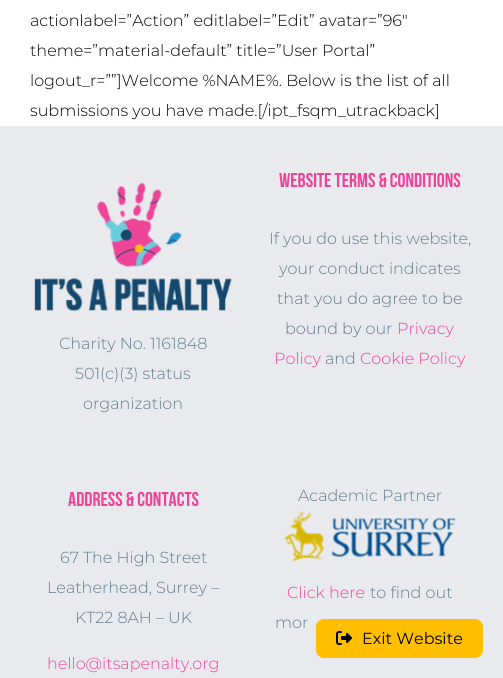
#include <cairo.h>
#include <math.h>
#include <stddef.h>


static void set_color(cairo_t *cr, unsigned color) {
    cairo_set_source_rgb(cr, (color >> 16) / 255.0, (color >> 8 & 255) / 255.0, (color & 255) / 255.0);
}

static void draw_text(cairo_t *cr, double x, double y, const char *s, const char *family, double size, int italic, int bold, unsigned color) {
    cairo_select_font_face(cr, family, italic ? CAIRO_FONT_SLANT_ITALIC : CAIRO_FONT_SLANT_NORMAL,
        bold ? CAIRO_FONT_WEIGHT_BOLD : CAIRO_FONT_WEIGHT_NORMAL);
    cairo_set_font_size(cr, size);
    set_color(cr, color);
    cairo_move_to(cr, x, y);
    cairo_show_text(cr, s);
}

static void fill_rect(cairo_t *cr, double x, double y, double w, double h, unsigned color) {
    set_color(cr, color);
    cairo_rectangle(cr, x, y, w, h);
    cairo_fill(cr);
}

static void rounded_rect(cairo_t *cr, double x, double y, double w, double h, double r) {
    cairo_new_sub_path(cr);
    cairo_arc(cr, x + w - r, y + h - r, r, 0, M_PI / 2);
    cairo_arc(cr, x + r, y + h - r, r, M_PI / 2, M_PI);
    cairo_arc(cr, x + r, y + r, r, M_PI, 1.5 * M_PI);
    cairo_arc(cr, x + w - r, y + r, r, 1.5 * M_PI, 2 * M_PI);
    cairo_close_path(cr);
}

static void draw_image(cairo_t *cr, const char *path, double x, double y, double w, double h) {
    cairo_surface_t *image = cairo_image_surface_create_from_png(path);
    cairo_save(cr);
    cairo_set_source_surface(cr, image, x, y);
    cairo_rectangle(cr, x, y, w, h);
    cairo_fill(cr);
    cairo_restore(cr);
    cairo_surface_destroy(image);
}

int main(void) {
    cairo_surface_t *surface = cairo_image_surface_create(CAIRO_FORMAT_RGB24, 503, 678);
    cairo_t *cr = cairo_create(surface);
    cairo_font_options_t *options = cairo_font_options_create();
    cairo_font_options_set_hint_metrics(options, CAIRO_HINT_METRICS_OFF);
    cairo_font_options_set_hint_style(options, CAIRO_HINT_STYLE_NONE);
    cairo_set_font_options(cr, options);
    cairo_set_miter_limit(cr, 4);
    set_color(cr, 0xFFFFFF);
    cairo_paint(cr);
    draw_text(cr, 30, 26, "actionlabel=”Action” editlabel=”Edit” avatar=”96″", "Montserrat Light", 16, 0, 0, 0x000000);
    draw_text(cr, 30, 56, "theme=”material-default” title=”User Portal”", "Montserrat Light", 16, 0, 0, 0x000000);
    draw_text(cr, 30, 86, "logout_r=””]Welcome %NAME%. Below is the list of all", "Montserrat Light", 16, 0, 0, 0x000000);
    draw_text(cr, 30, 116, "submissions you have made.[/ipt_fsqm_utrackback]", "Montserrat Light", 16, 0, 0, 0x000000);
    fill_rect(cr, 0, 126, 503, 552, 0xE9EAEE);
    draw_image(cr, "assets/img1.png", 34, 182, 198, 129);
    draw_text(cr, 59, 349, "Charity No. 1161848", "Montserrat Light", 16, 0, 0, 0x607D8B);
    draw_text(cr, 75, 379, "501(c)(3) status", "Montserrat Light", 16, 0, 0, 0x607D8B);
    draw_text(cr, 83, 409, "organization", "Montserrat Light", 16, 0, 0, 0x607D8B);
    draw_text(cr, 279, 187, "WEBSITE TERMS & CONDITIONS", "Bebas Neue", 20, 0, 0, 0xEE4399);
    draw_text(cr, 269, 244, "If you do use this website,", "Montserrat Light", 16, 0, 0, 0x607D8B);
    draw_text(cr, 279, 274, "your conduct indicates", "Montserrat Light", 16, 0, 0, 0x607D8B);
    draw_text(cr, 277, 304, "that you do agree to be", "Montserrat Light", 16, 0, 0, 0x607D8B);
    draw_text(cr, 285, 334, "bound by our", "Montserrat Light", 16, 0, 0, 0x607D8B);
    draw_text(cr, 397, 334, "Privacy", "Montserrat Light", 16, 0, 0, 0xEE4399);
    draw_text(cr, 274, 364, "Policy", "Montserrat Light", 16, 0, 0, 0xEE4399);
    draw_text(cr, 325, 364, "and", "Montserrat Light", 16, 0, 0, 0x607D8B);
    draw_text(cr, 360, 364, "Cookie Policy", "Montserrat Light", 16, 0, 0, 0xEE4399);
    draw_text(cr, 68, 506, "ADDRESS & CONTACTS", "Bebas Neue", 20, 0, 0, 0xEE4399);
    draw_text(cr, 60, 563, "67 The High Street", "Montserrat Light", 16, 0, 0, 0x607D8B);
    draw_text(cr, 47, 593, "Leatherhead, Surrey –", "Montserrat Light", 16, 0, 0, 0x607D8B);
    draw_text(cr, 75, 623, "KT22 8AH – UK", "Montserrat Light", 16, 0, 0, 0x607D8B);
    draw_text(cr, 47, 669, "hello@itsapenalty.org", "Montserrat Light", 16, 0, 0, 0xEE4399);
    draw_text(cr, 298, 501, "Academic Partner", "Montserrat Light", 16, 0, 0, 0x607D8B);
    draw_image(cr, "assets/img2.png", 284, 511, 171, 51);
    draw_text(cr, 287, 598, "Click here", "Montserrat Light", 16, 0, 0, 0xEE4399);
    draw_text(cr, 370, 598, "to find out", "Montserrat Light", 16, 0, 0, 0x607D8B);
    draw_text(cr, 275, 628, "mor", "Montserrat Light", 16, 0, 0, 0x607D8B);
    set_color(cr, 0xFFBF00);
    rounded_rect(cr, 316, 619, 167, 39, 8);
    cairo_fill(cr);
    draw_image(cr, "assets/img3.png", 336, 631, 16, 14);
    draw_text(cr, 362, 644, "Exit Website", "Montserrat", 16, 0, 0, 0x000000);
    cairo_surface_write_to_png(surface, "output.png");
    cairo_font_options_destroy(options);
    cairo_destroy(cr);
    cairo_surface_destroy(surface);
    return 0;
}
